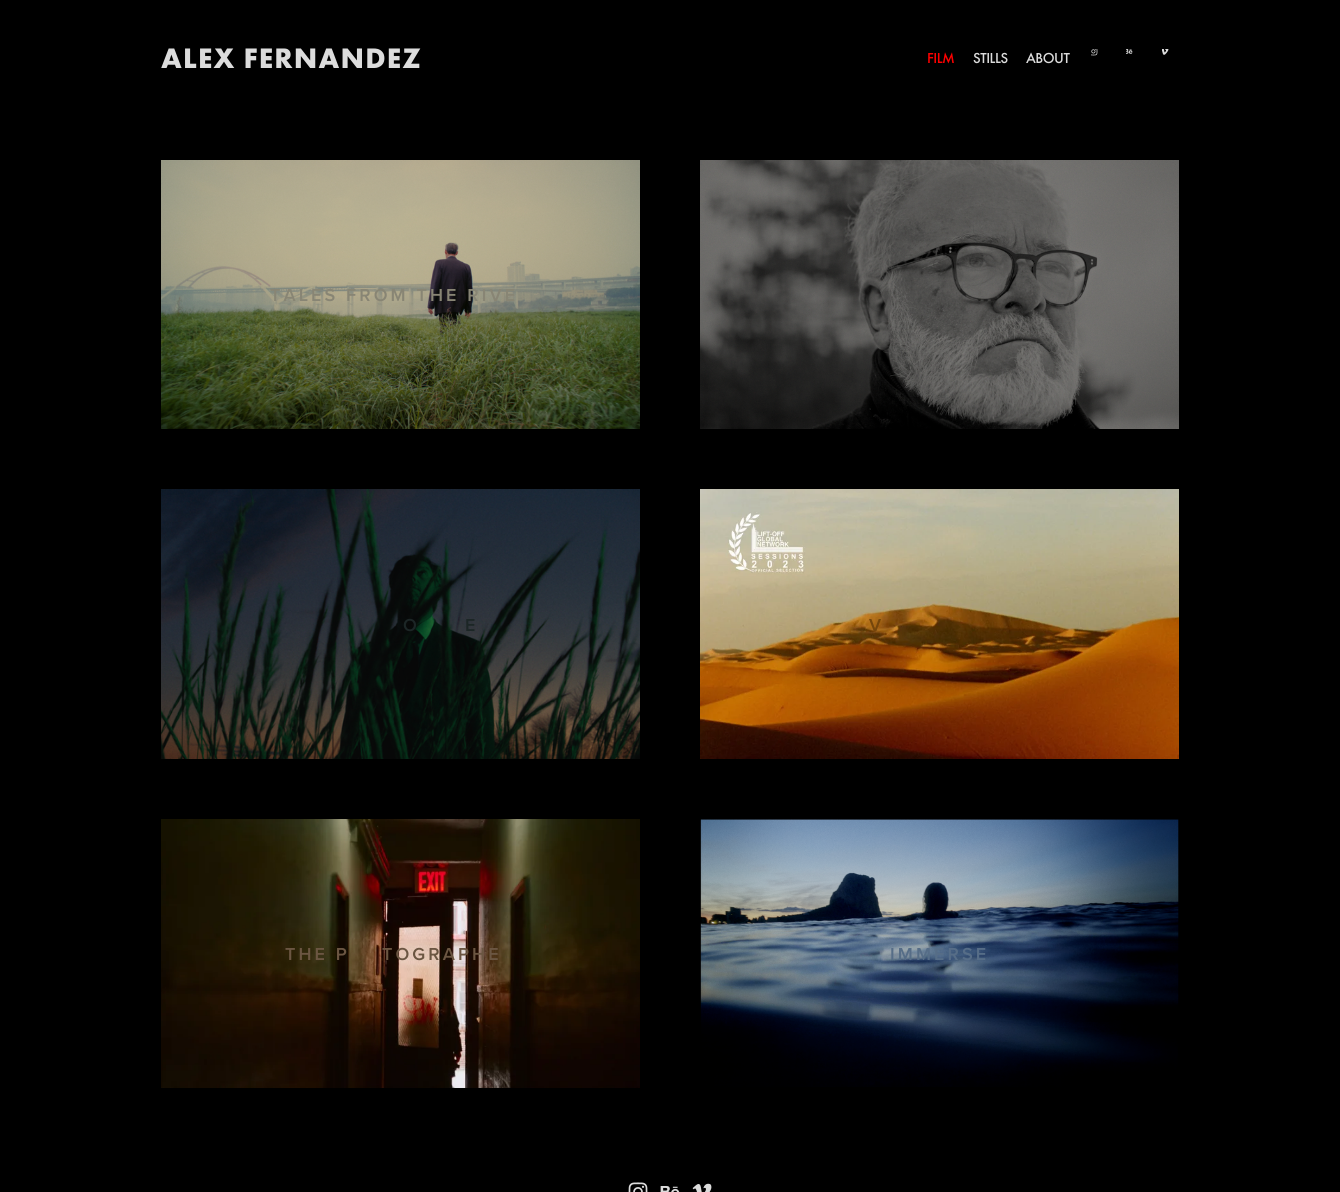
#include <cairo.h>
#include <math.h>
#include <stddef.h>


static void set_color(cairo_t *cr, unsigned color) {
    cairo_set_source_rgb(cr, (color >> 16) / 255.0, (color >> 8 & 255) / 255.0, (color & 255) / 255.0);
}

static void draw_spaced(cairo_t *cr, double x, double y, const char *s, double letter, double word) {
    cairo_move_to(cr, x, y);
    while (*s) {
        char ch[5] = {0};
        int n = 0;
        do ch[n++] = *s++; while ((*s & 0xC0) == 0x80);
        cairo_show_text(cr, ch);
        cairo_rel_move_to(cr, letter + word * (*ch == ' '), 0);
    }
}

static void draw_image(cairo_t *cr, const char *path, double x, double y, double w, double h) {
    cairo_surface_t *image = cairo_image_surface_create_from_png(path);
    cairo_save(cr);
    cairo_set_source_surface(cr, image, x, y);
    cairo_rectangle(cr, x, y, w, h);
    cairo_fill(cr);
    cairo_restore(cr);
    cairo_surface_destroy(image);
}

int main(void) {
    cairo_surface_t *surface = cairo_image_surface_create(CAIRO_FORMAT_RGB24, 1340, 1192);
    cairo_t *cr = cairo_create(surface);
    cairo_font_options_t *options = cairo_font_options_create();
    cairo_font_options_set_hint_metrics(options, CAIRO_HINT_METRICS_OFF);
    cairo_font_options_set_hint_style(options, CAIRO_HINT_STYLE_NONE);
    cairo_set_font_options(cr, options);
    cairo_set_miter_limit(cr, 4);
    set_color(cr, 0x000000);
    cairo_paint(cr);
    cairo_select_font_face(cr, "Futura PT", CAIRO_FONT_SLANT_NORMAL, CAIRO_FONT_WEIGHT_BOLD);
    cairo_set_font_size(cr, 29.25);
    set_color(cr, 0xDCDCDC);
    draw_spaced(cr, 161, 68, "ALEX FERNANDEZ", 1.2, 0);
    cairo_select_font_face(cr, "Futura PT Medium", CAIRO_FONT_SLANT_NORMAL, CAIRO_FONT_WEIGHT_NORMAL);
    cairo_set_font_size(cr, 15);
    set_color(cr, 0xFF0000);
    draw_spaced(cr, 927, 63, "FILM", -0.5, 0);
    set_color(cr, 0xDCDCDC);
    draw_spaced(cr, 973, 63, "STILLS", -0.5, 0);
    draw_spaced(cr, 1026, 63, "ABOUT", -0.5, 0);
    draw_image(cr, "assets/img1.png", 1091, 49, 7, 7);
    draw_image(cr, "assets/img2.png", 1126, 49, 7, 5);
    draw_image(cr, "assets/img3.png", 1162, 49, 7, 6);
    draw_image(cr, "assets/img4.png", 161, 160, 479, 269);
    cairo_select_font_face(cr, "Proxima Nova SemiBold", CAIRO_FONT_SLANT_NORMAL, CAIRO_FONT_WEIGHT_NORMAL);
    cairo_set_font_size(cr, 18);
    set_color(cr, 0x888574);
    draw_spaced(cr, 270, 301, "TALES FROM THE RIVE", 3.1, 0);
    draw_image(cr, "assets/img5.png", 700, 160, 479, 269);
    draw_image(cr, "assets/img6.png", 161, 489, 479, 270);
    set_color(cr, 0x1C2626);
    draw_spaced(cr, 403, 631, "O", 3.1, 0);
    draw_spaced(cr, 465, 631, "E", 3.1, 0);
    draw_image(cr, "assets/img7.png", 700, 489, 479, 270);
    set_color(cr, 0x75460B);
    draw_spaced(cr, 869, 631, "V", 3.1, 0);
    draw_image(cr, "assets/img8.png", 161, 819, 479, 269);
    set_color(cr, 0x6B5642);
    draw_spaced(cr, 285, 960, "THE P", 3.1, 0);
    draw_spaced(cr, 382, 960, "TOGRAPHE", 3.1, 0);
    draw_image(cr, "assets/img9.png", 700, 819, 479, 268);
    set_color(cr, 0x566D87);
    draw_spaced(cr, 890, 960, "IMMERSE", 3.1, 0);
    draw_image(cr, "assets/img10.png", 628, 1182, 20, 10);
    draw_image(cr, "assets/img11.png", 660, 1186, 20, 6);
    draw_image(cr, "assets/img12.png", 692, 1183, 20, 9);
    cairo_surface_write_to_png(surface, "output.png");
    cairo_font_options_destroy(options);
    cairo_destroy(cr);
    cairo_surface_destroy(surface);
    return 0;
}
